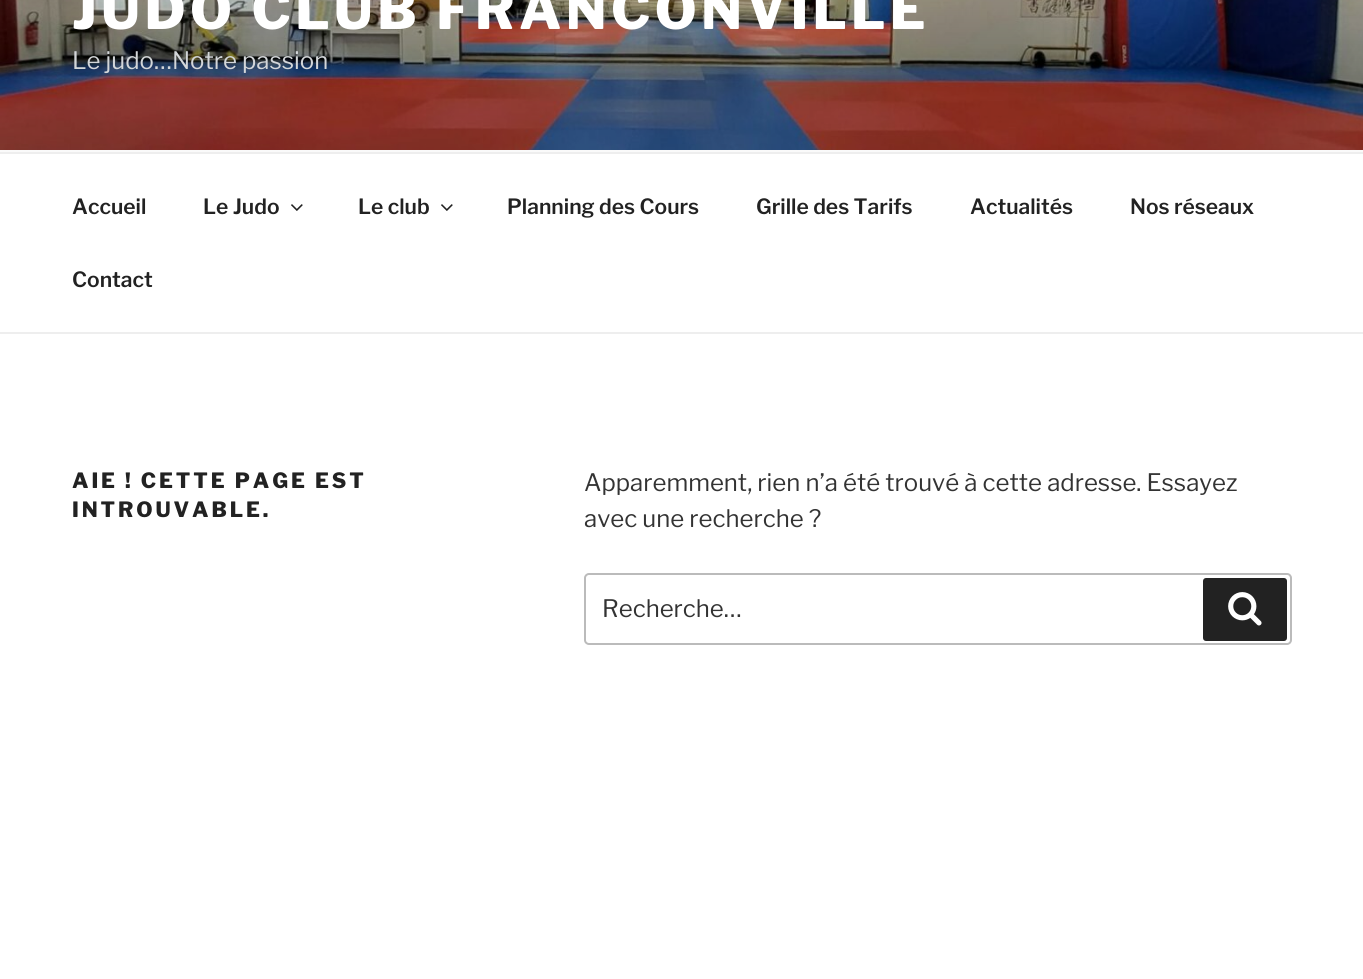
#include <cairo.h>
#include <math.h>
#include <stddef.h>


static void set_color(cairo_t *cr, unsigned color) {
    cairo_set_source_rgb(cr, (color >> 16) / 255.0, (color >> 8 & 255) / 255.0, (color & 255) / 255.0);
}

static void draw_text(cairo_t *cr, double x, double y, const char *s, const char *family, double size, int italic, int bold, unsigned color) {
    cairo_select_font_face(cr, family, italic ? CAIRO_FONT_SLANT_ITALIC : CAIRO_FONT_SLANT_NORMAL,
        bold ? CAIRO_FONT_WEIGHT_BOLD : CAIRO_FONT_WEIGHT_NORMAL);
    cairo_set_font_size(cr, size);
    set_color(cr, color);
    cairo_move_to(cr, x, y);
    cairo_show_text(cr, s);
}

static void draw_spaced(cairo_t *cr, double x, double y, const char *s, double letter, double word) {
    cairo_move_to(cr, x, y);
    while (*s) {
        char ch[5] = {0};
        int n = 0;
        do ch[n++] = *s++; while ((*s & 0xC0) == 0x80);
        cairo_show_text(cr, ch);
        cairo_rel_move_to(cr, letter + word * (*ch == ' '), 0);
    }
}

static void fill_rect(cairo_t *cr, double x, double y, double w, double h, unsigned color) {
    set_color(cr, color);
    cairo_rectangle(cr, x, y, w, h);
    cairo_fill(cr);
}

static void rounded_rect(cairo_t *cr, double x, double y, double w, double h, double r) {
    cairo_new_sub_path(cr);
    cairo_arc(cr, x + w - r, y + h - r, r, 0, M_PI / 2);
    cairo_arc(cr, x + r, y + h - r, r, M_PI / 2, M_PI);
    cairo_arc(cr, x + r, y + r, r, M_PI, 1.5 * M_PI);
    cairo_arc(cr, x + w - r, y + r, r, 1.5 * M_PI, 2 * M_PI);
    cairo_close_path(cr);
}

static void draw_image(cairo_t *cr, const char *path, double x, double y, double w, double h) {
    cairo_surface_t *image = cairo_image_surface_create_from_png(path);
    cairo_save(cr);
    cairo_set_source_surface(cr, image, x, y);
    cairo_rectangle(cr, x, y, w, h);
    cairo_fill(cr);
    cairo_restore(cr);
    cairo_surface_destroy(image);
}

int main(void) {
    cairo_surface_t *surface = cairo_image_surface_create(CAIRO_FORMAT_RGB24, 1363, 979);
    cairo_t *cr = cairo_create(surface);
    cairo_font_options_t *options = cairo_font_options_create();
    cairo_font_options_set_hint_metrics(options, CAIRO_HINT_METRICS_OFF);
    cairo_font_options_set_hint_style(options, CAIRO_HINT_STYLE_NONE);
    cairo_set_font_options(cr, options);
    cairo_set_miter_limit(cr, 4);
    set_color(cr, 0xFFFFFF);
    cairo_paint(cr);
    fill_rect(cr, 0, 150, 1363, 2, 0xFAFAFA);
    draw_image(cr, "assets/img1.png", 0, 0, 1363, 150);
    cairo_select_font_face(cr, "Libre Franklin Thin", CAIRO_FONT_SLANT_NORMAL, CAIRO_FONT_WEIGHT_NORMAL);
    cairo_set_font_size(cr, 54);
    set_color(cr, 0xFFFFFF);
    draw_spaced(cr, 72, 29, "JUDO CLUB FRANCONVILLE", 4.3, 0);
    draw_text(cr, 72, 69, "Le judo…Notre passion", "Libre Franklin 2 Thin", 24, 0, 0, 0xD3D6D9);
    fill_rect(cr, 0, 152, 1363, 2, 0xEEEEEE);
    fill_rect(cr, 0, 332, 1363, 2, 0xEEEEEE);
    draw_text(cr, 72, 214, "Accueil", "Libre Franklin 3 Thin", 21, 0, 0, 0x222222);
    draw_text(cr, 203, 214, "Le Judo", "Libre Franklin 3 Thin", 21, 0, 0, 0x222222);
    draw_image(cr, "assets/img2.png", 291, 204, 12, 7);
    draw_text(cr, 358, 214, "Le club", "Libre Franklin 3 Thin", 21, 0, 0, 0x222222);
    draw_image(cr, "assets/img2.png", 441, 204, 12, 7);
    draw_text(cr, 507, 214, "Planning des Cours", "Libre Franklin 3 Thin", 21, 0, 0, 0x222222);
    draw_text(cr, 756, 214, "Grille des Tarifs", "Libre Franklin 3 Thin", 21, 0, 0, 0x222222);
    draw_text(cr, 970, 214, "Actualités", "Libre Franklin 3 Thin", 21, 0, 0, 0x222222);
    draw_text(cr, 1130, 214, "Nos réseaux", "Libre Franklin 3 Thin", 21, 0, 0, 0x222222);
    draw_text(cr, 72, 287, "Contact", "Libre Franklin 3 Thin", 21, 0, 0, 0x222222);
    cairo_select_font_face(cr, "Libre Franklin Thin", CAIRO_FONT_SLANT_NORMAL, CAIRO_FONT_WEIGHT_NORMAL);
    draw_spaced(cr, 72, 488, "AIE ! CETTE PAGE EST", 2.9, 0);
    draw_spaced(cr, 72, 517, "INTROUVABLE.", 2.9, 0);
    draw_text(cr, 584, 491, "Apparemment, rien n’a été trouvé à cette adresse. Essayez", "Libre Franklin 2 Thin", 24, 0, 0, 0x333333);
    draw_text(cr, 584, 527, "avec une recherche ?", "Libre Franklin 2 Thin", 24, 0, 0, 0x333333);
    rounded_rect(cr, 585, 574, 706, 70, 4);
    set_color(cr, 0xBBBBBB);
    cairo_stroke(cr);
    draw_text(cr, 602, 617, "Recherche…", "Libre Franklin 2 Thin", 24, 0, 0, 0x333333);
    set_color(cr, 0x222222);
    rounded_rect(cr, 1203, 578, 84, 63, 3);
    cairo_fill(cr);
    draw_image(cr, "assets/img3.png", 1228, 592, 34, 34);
    cairo_surface_write_to_png(surface, "output.png");
    cairo_font_options_destroy(options);
    cairo_destroy(cr);
    cairo_surface_destroy(surface);
    return 0;
}
